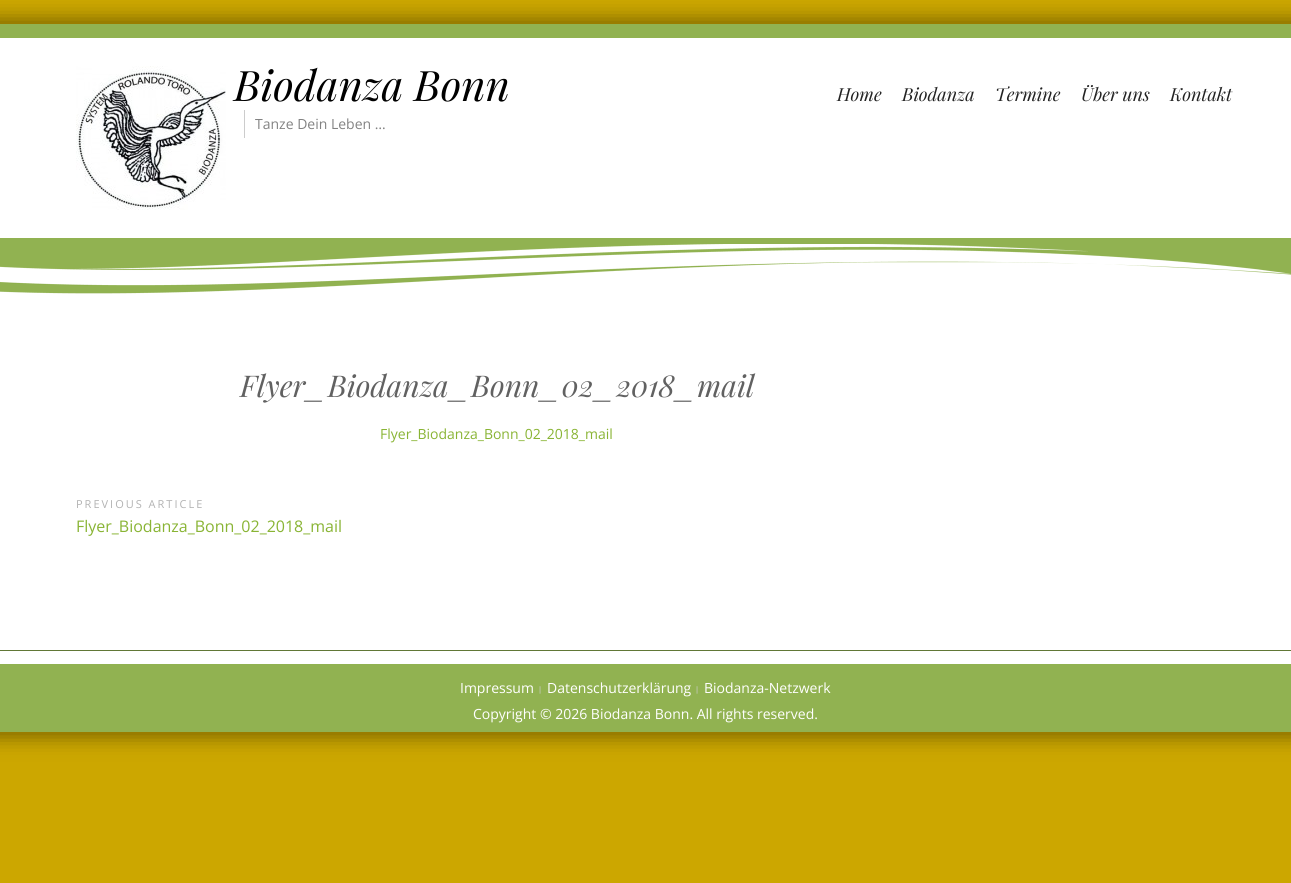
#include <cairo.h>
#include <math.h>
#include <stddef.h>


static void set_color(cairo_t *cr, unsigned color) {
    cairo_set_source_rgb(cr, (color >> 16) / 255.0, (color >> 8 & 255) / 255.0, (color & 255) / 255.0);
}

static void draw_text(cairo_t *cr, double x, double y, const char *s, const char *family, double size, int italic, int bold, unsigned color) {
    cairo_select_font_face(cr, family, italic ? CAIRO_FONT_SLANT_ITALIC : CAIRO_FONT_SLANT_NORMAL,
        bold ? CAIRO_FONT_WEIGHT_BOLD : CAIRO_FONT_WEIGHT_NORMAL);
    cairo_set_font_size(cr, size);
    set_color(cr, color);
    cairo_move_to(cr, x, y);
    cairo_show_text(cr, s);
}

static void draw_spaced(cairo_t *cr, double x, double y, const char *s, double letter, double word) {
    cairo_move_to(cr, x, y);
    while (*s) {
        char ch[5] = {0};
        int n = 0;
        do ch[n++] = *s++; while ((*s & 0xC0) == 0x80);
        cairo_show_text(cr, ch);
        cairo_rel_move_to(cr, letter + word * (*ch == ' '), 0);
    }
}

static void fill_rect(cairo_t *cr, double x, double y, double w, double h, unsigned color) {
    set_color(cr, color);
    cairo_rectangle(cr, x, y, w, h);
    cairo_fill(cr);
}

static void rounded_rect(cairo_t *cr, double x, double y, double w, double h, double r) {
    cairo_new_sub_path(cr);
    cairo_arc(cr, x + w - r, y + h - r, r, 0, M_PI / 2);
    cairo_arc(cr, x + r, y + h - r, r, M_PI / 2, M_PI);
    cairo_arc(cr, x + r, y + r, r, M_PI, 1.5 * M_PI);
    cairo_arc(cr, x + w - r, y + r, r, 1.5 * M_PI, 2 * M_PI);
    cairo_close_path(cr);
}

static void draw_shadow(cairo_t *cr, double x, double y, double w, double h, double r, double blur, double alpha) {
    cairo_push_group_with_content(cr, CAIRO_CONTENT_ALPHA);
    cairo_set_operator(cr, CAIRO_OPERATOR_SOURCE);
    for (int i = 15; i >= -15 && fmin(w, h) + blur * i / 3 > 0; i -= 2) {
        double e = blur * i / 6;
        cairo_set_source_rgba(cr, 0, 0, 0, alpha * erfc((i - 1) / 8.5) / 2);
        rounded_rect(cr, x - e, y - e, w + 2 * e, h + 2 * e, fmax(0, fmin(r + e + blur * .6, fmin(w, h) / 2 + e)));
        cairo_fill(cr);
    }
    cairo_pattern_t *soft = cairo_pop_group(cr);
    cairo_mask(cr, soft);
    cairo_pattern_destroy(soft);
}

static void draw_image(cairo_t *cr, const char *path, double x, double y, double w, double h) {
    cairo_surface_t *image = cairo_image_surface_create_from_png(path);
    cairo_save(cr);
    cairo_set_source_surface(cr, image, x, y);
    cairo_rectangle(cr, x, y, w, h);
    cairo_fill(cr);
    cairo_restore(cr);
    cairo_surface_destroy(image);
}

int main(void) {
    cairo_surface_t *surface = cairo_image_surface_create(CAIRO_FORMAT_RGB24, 1291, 883);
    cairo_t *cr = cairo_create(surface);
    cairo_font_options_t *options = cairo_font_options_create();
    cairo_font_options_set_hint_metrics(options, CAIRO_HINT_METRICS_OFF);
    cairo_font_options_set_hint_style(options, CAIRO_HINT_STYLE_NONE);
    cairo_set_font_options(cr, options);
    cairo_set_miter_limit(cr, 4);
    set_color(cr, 0xCCA700);
    cairo_paint(cr);
    set_color(cr, 0x000000);
    draw_shadow(cr, -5, 19, 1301, 718, 0, 10, 0.4);
    fill_rect(cr, 0, 24, 1291, 14, 0x91B251);
    fill_rect(cr, 0, 38, 1291, 200, 0xFFFFFF);
    draw_image(cr, "assets/img1.png", 76, 66, 150, 144);
    draw_text(cr, 234, 101, "Biodanza Bonn", "Playfair Display", 42, 1, 0, 0x000000);
    fill_rect(cr, 244, 110, 1, 28, 0xCCCCCC);
    draw_text(cr, 255, 129, "Tanze Dein Leben …", "Open Sans", 14, 0, 0, 0x828282);
    draw_text(cr, 837, 101, "Home", "Playfair Display", 18, 1, 0, 0x222222);
    draw_text(cr, 902, 101, "Biodanza", "Playfair Display", 18, 1, 0, 0x222222);
    draw_text(cr, 995, 101, "Termine", "Playfair Display", 18, 1, 0, 0x222222);
    draw_text(cr, 1081, 101, "Über uns", "Playfair Display", 18, 1, 0, 0x222222);
    draw_text(cr, 1170, 101, "Kontakt", "Playfair Display", 18, 1, 0, 0x222222);
    fill_rect(cr, 0, 238, 1291, 37, 0x91B251);
    fill_rect(cr, 0, 293, 1291, 357, 0xFFFFFF);
    draw_image(cr, "assets/img2.png", 0, 244, 1291, 50);
    draw_text(cr, 240, 397, "Flyer_Biodanza_Bonn_02_2018_mail", "Playfair Display", 30, 1, 0, 0x616161);
    draw_text(cr, 380, 439, "Flyer_Biodanza_Bonn_02_2018_mail", "Open Sans", 14, 0, 0, 0x89B434);
    cairo_set_font_size(cr, 11);
    set_color(cr, 0xB2B2B2);
    draw_spaced(cr, 76, 508, "PREVIOUS ARTICLE", 2, 0);
    draw_text(cr, 76, 532, "Flyer_Biodanza_Bonn_02_2018_mail", "Open Sans", 16, 0, 0, 0x89B434);
    fill_rect(cr, 0, 651, 1291, 13, 0xFFFFFF);
    fill_rect(cr, 0, 650, 1291, 1, 0x617736);
    fill_rect(cr, 0, 664, 1291, 68, 0x91B251);
    draw_text(cr, 460, 693, "Impressum", "Open Sans", 14, 0, 0, 0xFFFFFF);
    draw_text(cr, 539, 692, "|", "Liberation Sans", 8, 0, 0, 0xCCCCCC);
    draw_text(cr, 547, 693, "Datenschutzerklärung", "Open Sans", 14, 0, 0, 0xFFFFFF);
    draw_text(cr, 696, 692, "|", "Liberation Sans", 8, 0, 0, 0xCCCCCC);
    draw_text(cr, 704, 693, "Biodanza-Netzwerk", "Open Sans", 14, 0, 0, 0xFFFFFF);
    draw_text(cr, 473, 719, "Copyright © 2026 Biodanza Bonn. All rights reserved.", "Open Sans", 14, 0, 0, 0xFFFFFF);
    cairo_surface_write_to_png(surface, "output.png");
    cairo_font_options_destroy(options);
    cairo_destroy(cr);
    cairo_surface_destroy(surface);
    return 0;
}
